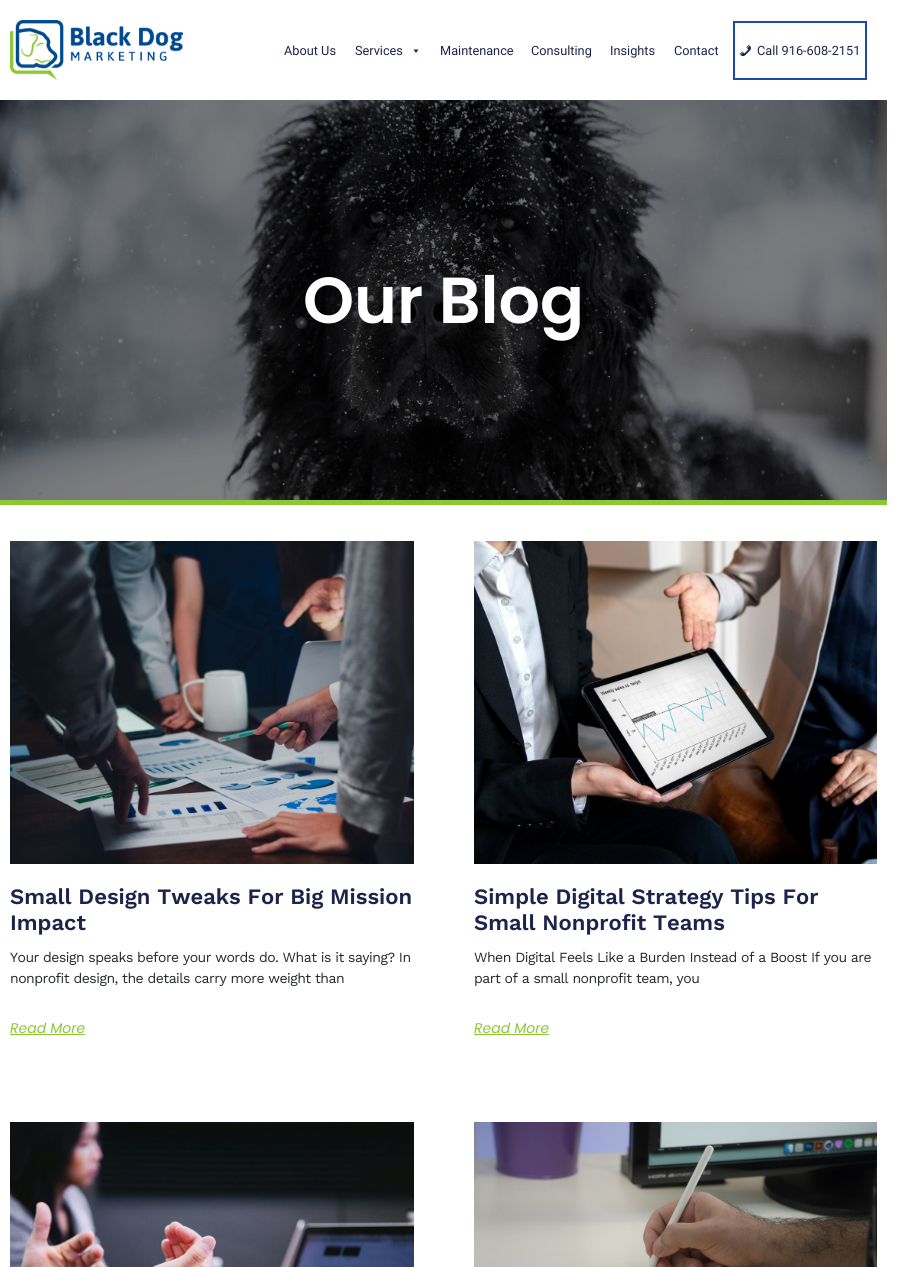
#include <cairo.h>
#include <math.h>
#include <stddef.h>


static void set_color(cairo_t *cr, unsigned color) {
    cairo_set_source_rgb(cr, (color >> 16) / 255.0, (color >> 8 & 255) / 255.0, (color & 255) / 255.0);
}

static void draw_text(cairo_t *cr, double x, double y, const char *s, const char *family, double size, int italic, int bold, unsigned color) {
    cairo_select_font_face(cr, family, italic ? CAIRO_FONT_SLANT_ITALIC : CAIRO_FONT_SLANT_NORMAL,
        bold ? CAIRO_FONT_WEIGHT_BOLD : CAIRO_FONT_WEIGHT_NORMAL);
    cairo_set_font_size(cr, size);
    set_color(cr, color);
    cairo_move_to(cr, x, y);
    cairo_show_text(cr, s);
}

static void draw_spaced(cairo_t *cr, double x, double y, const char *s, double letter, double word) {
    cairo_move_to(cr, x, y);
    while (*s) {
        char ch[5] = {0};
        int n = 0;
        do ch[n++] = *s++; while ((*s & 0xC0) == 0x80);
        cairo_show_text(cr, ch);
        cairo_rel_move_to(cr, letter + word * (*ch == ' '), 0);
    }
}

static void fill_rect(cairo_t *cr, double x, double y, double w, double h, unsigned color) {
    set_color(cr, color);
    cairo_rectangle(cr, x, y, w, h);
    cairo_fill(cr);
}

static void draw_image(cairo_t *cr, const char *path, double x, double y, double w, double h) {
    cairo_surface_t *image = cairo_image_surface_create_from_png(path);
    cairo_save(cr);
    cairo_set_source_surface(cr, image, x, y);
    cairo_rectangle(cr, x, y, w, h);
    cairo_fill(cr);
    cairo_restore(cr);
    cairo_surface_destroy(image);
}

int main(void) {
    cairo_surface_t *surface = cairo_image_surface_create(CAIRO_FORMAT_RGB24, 907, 1267);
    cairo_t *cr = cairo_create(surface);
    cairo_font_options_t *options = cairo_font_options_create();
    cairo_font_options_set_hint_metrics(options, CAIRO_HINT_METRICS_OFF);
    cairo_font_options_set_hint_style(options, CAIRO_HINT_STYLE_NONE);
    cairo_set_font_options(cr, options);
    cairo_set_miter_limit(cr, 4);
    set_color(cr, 0xFFFFFF);
    cairo_paint(cr);
    draw_image(cr, "assets/img1.png", 10, 20, 173, 60);
    draw_text(cr, 284, 55, "About Us", "Roboto", 12.75, 0, 0, 0x1C244B);
    draw_text(cr, 355, 55, "Services", "Roboto", 12.75, 0, 0, 0x1C244B);
    cairo_new_path(cr);
    cairo_move_to(cr, 418.5, 49.5);
    cairo_line_to(cr, 416, 53);
    cairo_line_to(cr, 413.5, 49.5);
    cairo_close_path(cr);
    cairo_fill(cr);
    draw_text(cr, 440, 55, "Maintenance", "Roboto", 12.75, 0, 0, 0x1C244B);
    draw_text(cr, 531, 55, "Consulting", "Roboto", 12.75, 0, 0, 0x1C244B);
    draw_text(cr, 610, 55, "Insights", "Roboto", 12.75, 0, 0, 0x1C244B);
    draw_text(cr, 674, 55, "Contact", "Roboto", 12.75, 0, 0, 0x1C244B);
    cairo_rectangle(cr, 734, 22, 132, 57);
    set_color(cr, 0x1C49AF);
    cairo_stroke(cr);
    draw_image(cr, "assets/img2.png", 739, 44, 12, 13);
    draw_text(cr, 757, 55, "Call 916-608-2151", "Roboto", 12.75, 0, 0, 0x1C244B);
    draw_image(cr, "assets/img3.png", 0, 100, 887, 400);
    fill_rect(cr, 0, 500, 887, 5, 0x8CC734);
    draw_text(cr, 303, 323, "Our Blog", "Poppins SemiBold", 65, 0, 0, 0xFFFFFF);
    draw_image(cr, "assets/img4.png", 10, 541, 404, 323);
    draw_text(cr, 10, 904, "Small Design Tweaks For Big Mission", "Work Sans SemiBold", 22, 0, 0, 0x1C244B);
    draw_text(cr, 10, 930, "Impact", "Work Sans SemiBold", 22, 0, 0, 0x1C244B);
    cairo_select_font_face(cr, "Work Sans", CAIRO_FONT_SLANT_NORMAL, CAIRO_FONT_WEIGHT_NORMAL);
    cairo_set_font_size(cr, 14);
    set_color(cr, 0x25282C);
    draw_spaced(cr, 10, 962, "Your design speaks before your words do. What is it saying? In", -0.5, 0);
    draw_spaced(cr, 10, 983, "nonprofit design, the details carry more weight than", -0.5, 0);
    draw_text(cr, 10, 1033, "Read More", "Poppins", 14, 1, 0, 0x8CC734);
    fill_rect(cr, 10, 1034, 75, 1, 0x8CC734);
    draw_image(cr, "assets/img5.png", 474, 541, 403, 323);
    draw_text(cr, 474, 904, "Simple Digital Strategy Tips For", "Work Sans SemiBold", 22, 0, 0, 0x1C244B);
    draw_text(cr, 474, 930, "Small Nonprofit Teams", "Work Sans SemiBold", 22, 0, 0, 0x1C244B);
    cairo_select_font_face(cr, "Work Sans", CAIRO_FONT_SLANT_NORMAL, CAIRO_FONT_WEIGHT_NORMAL);
    cairo_set_font_size(cr, 14);
    set_color(cr, 0x25282C);
    draw_spaced(cr, 474, 962, "When Digital Feels Like a Burden Instead of a Boost If you are", -0.5, 0);
    draw_spaced(cr, 474, 983, "part of a small nonprofit team, you", -0.5, 0);
    draw_text(cr, 474, 1033, "Read More", "Poppins", 14, 1, 0, 0x8CC734);
    fill_rect(cr, 474, 1034, 75, 1, 0x8CC734);
    draw_image(cr, "assets/img6.png", 10, 1122, 404, 145);
    draw_image(cr, "assets/img7.png", 474, 1122, 403, 145);
    cairo_surface_write_to_png(surface, "output.png");
    cairo_font_options_destroy(options);
    cairo_destroy(cr);
    cairo_surface_destroy(surface);
    return 0;
}
